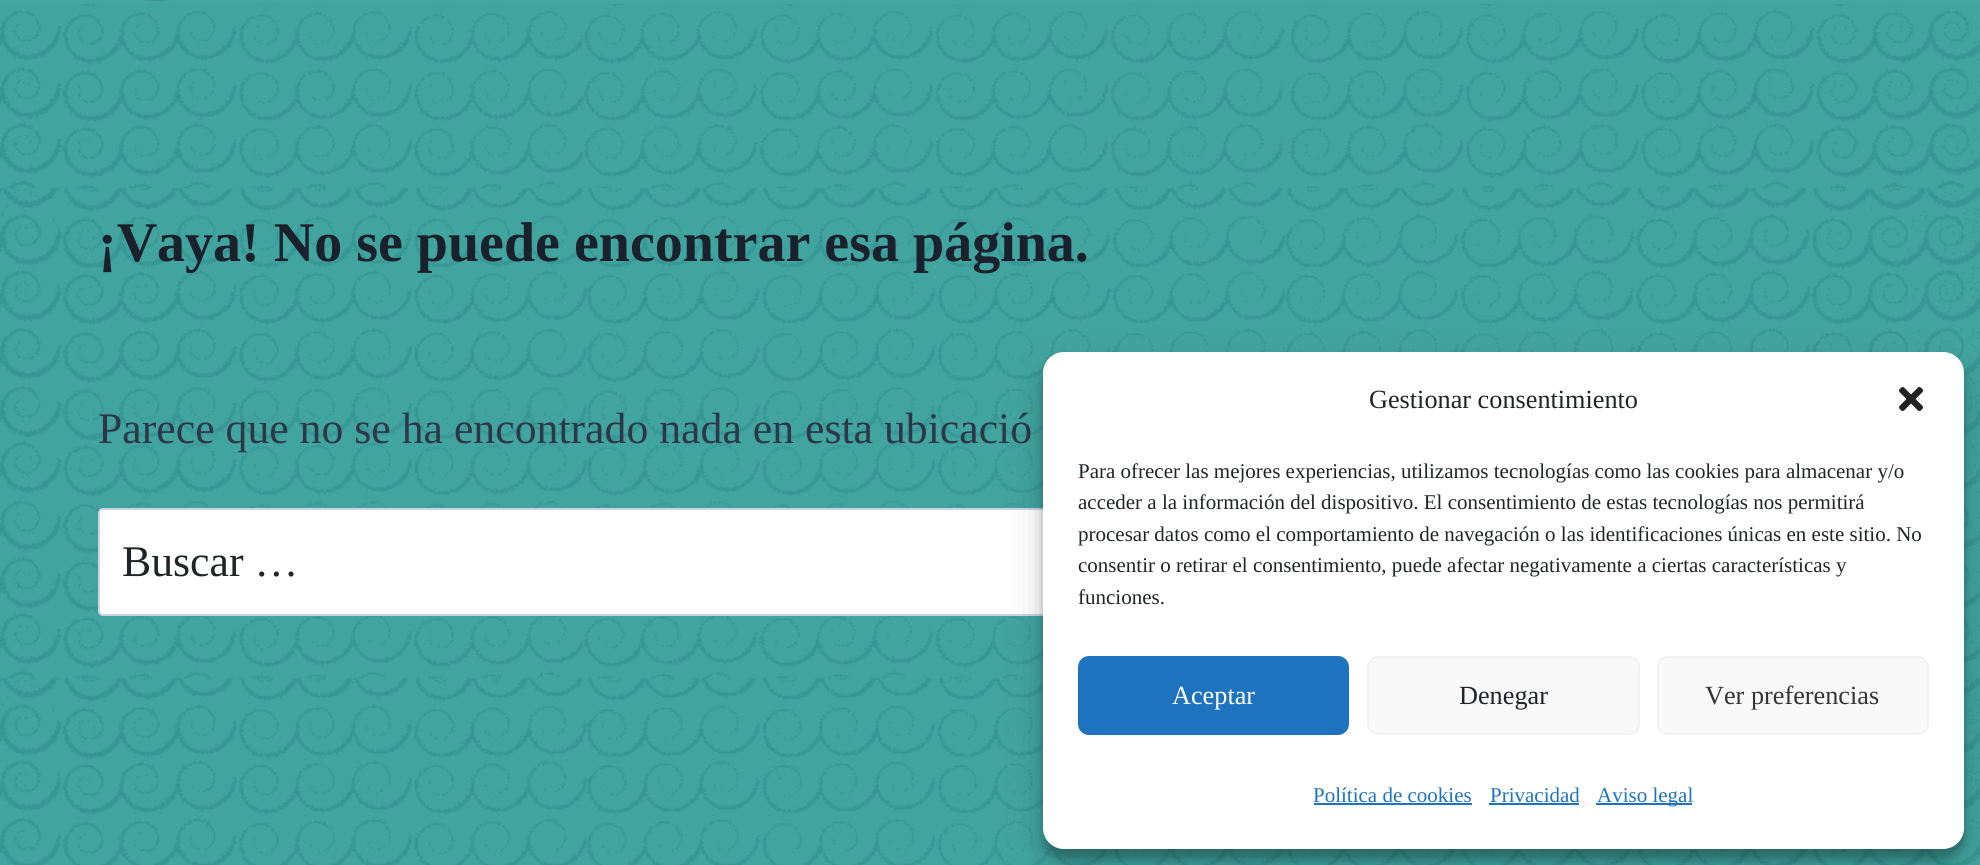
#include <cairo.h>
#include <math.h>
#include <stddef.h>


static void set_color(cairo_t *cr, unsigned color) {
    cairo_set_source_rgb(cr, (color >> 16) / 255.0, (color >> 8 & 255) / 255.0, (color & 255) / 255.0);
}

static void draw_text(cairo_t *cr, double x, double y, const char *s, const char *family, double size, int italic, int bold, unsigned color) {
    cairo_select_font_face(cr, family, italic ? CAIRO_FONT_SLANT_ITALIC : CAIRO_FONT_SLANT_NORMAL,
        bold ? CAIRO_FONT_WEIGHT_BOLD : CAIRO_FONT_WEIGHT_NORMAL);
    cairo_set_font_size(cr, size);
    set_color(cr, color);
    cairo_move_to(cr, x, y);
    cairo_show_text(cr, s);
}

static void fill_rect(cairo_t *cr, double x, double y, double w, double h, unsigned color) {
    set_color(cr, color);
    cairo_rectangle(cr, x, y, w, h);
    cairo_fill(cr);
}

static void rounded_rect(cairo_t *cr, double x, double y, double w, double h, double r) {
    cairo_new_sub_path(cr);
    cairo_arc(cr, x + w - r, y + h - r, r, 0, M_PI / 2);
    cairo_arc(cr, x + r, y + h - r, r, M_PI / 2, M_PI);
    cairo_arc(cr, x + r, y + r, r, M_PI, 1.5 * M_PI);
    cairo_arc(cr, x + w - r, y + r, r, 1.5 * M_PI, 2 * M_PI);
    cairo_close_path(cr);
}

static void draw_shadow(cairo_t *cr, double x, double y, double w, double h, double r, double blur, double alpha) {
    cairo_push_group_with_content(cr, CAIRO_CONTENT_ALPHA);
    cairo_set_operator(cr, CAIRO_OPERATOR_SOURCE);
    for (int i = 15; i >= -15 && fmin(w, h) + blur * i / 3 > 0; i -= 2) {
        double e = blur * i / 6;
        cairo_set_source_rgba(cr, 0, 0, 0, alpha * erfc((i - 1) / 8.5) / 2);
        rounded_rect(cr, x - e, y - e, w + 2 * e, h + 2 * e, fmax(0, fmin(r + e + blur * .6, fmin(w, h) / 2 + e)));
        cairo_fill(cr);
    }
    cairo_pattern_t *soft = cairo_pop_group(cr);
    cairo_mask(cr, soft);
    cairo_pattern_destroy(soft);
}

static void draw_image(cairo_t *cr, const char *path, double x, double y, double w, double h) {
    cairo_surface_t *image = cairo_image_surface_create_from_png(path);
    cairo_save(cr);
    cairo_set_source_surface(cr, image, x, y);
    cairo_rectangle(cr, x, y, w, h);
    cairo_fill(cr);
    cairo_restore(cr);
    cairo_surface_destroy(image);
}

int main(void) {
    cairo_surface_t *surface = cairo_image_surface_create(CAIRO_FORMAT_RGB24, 1980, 865);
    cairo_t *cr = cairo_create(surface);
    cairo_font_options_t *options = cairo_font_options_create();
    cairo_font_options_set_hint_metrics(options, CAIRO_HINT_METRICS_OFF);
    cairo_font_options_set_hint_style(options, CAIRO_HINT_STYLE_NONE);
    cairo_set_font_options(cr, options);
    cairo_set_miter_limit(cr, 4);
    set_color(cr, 0xFFFFFF);
    cairo_paint(cr);
    draw_image(cr, "assets/img1.png", 0, 4, 1980, 861);
    fill_rect(cr, 0, 0, 1980, 4, 0x44A7A2);
    draw_image(cr, "assets/img2.png", 145, 0, 24, 1);
    draw_text(cr, 98, 261, "¡Vaya! No se puede encontrar esa página.", "Liberation Serif", 56, 0, 1, 0x1A202C);
    draw_text(cr, 98, 443, "Parece que no se ha encontrado nada en esta ubicació", "Liberation Serif", 43.75, 0, 0, 0x2D3748);
    set_color(cr, 0xFFFFFF);
    rounded_rect(cr, 99, 509, 1783, 106, 4);
    cairo_fill_preserve(cr);
    set_color(cr, 0xCBD5E0);
    cairo_stroke(cr);
    draw_text(cr, 122, 576, "Buscar …", "Liberation Serif", 43.75, 0, 0, 0x212427);
    set_color(cr, 0x000000);
    draw_shadow(cr, 1043, 362, 921, 497, 21, 5, 0.23);
    draw_shadow(cr, 1043, 369, 921, 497, 21, 17.5, 0.19);
    set_color(cr, 0xFFFFFF);
    rounded_rect(cr, 1043, 352, 921, 497, 21);
    cairo_fill(cr);
    draw_text(cr, 1369, 408, "Gestionar consentimiento", "Liberation Serif", 26.25, 0, 0, 0x212427);
    draw_image(cr, "assets/img3.png", 1899, 387, 24, 24);
    draw_text(cr, 1078, 478, "Para ofrecer las mejores experiencias, utilizamos tecnologías como las cookies para almacenar y/o", "Liberation Serif", 21, 0, 0, 0x212427);
    draw_text(cr, 1078, 509, "acceder a la información del dispositivo. El consentimiento de estas tecnologías nos permitirá", "Liberation Serif", 21, 0, 0, 0x212427);
    draw_text(cr, 1078, 541, "procesar datos como el comportamiento de navegación o las identificaciones únicas en este sitio. No", "Liberation Serif", 21, 0, 0, 0x212427);
    draw_text(cr, 1078, 572, "consentir o retirar el consentimiento, puede afectar negativamente a ciertas características y", "Liberation Serif", 21, 0, 0, 0x212427);
    draw_text(cr, 1078, 604, "funciones.", "Liberation Serif", 21, 0, 0, 0x212427);
    set_color(cr, 0x1E73BE);
    rounded_rect(cr, 1079, 657, 269, 77, 10);
    cairo_fill_preserve(cr);
    cairo_stroke(cr);
    draw_text(cr, 1172, 704, "Aceptar", "Liberation Serif", 26.25, 0, 0, 0xFFFFFF);
    set_color(cr, 0xF9F9F9);
    rounded_rect(cr, 1368, 657, 271, 77, 10);
    cairo_fill_preserve(cr);
    set_color(cr, 0xF2F2F2);
    cairo_stroke(cr);
    draw_text(cr, 1459, 704, "Denegar", "Liberation Serif", 26.25, 0, 0, 0x212427);
    set_color(cr, 0xF9F9F9);
    rounded_rect(cr, 1658, 657, 270, 77, 10);
    cairo_fill_preserve(cr);
    set_color(cr, 0xF2F2F2);
    cairo_stroke(cr);
    draw_text(cr, 1705, 704, "Ver preferencias", "Liberation Serif", 26.25, 0, 0, 0x333333);
    draw_text(cr, 1313, 802, "Política de cookies", "Liberation Serif", 21, 0, 0, 0x1E73BE);
    fill_rect(cr, 1314, 803, 158, 2, 0x1E73BE);
    draw_text(cr, 1490, 802, "Privacidad", "Liberation Serif", 21, 0, 0, 0x1E73BE);
    fill_rect(cr, 1489, 803, 90, 2, 0x1E73BE);
    fill_rect(cr, 1596, 803, 96, 2, 0x1E73BE);
    draw_text(cr, 1597, 802, "Aviso legal", "Liberation Serif", 21, 0, 0, 0x1E73BE);
    cairo_surface_write_to_png(surface, "output.png");
    cairo_font_options_destroy(options);
    cairo_destroy(cr);
    cairo_surface_destroy(surface);
    return 0;
}
